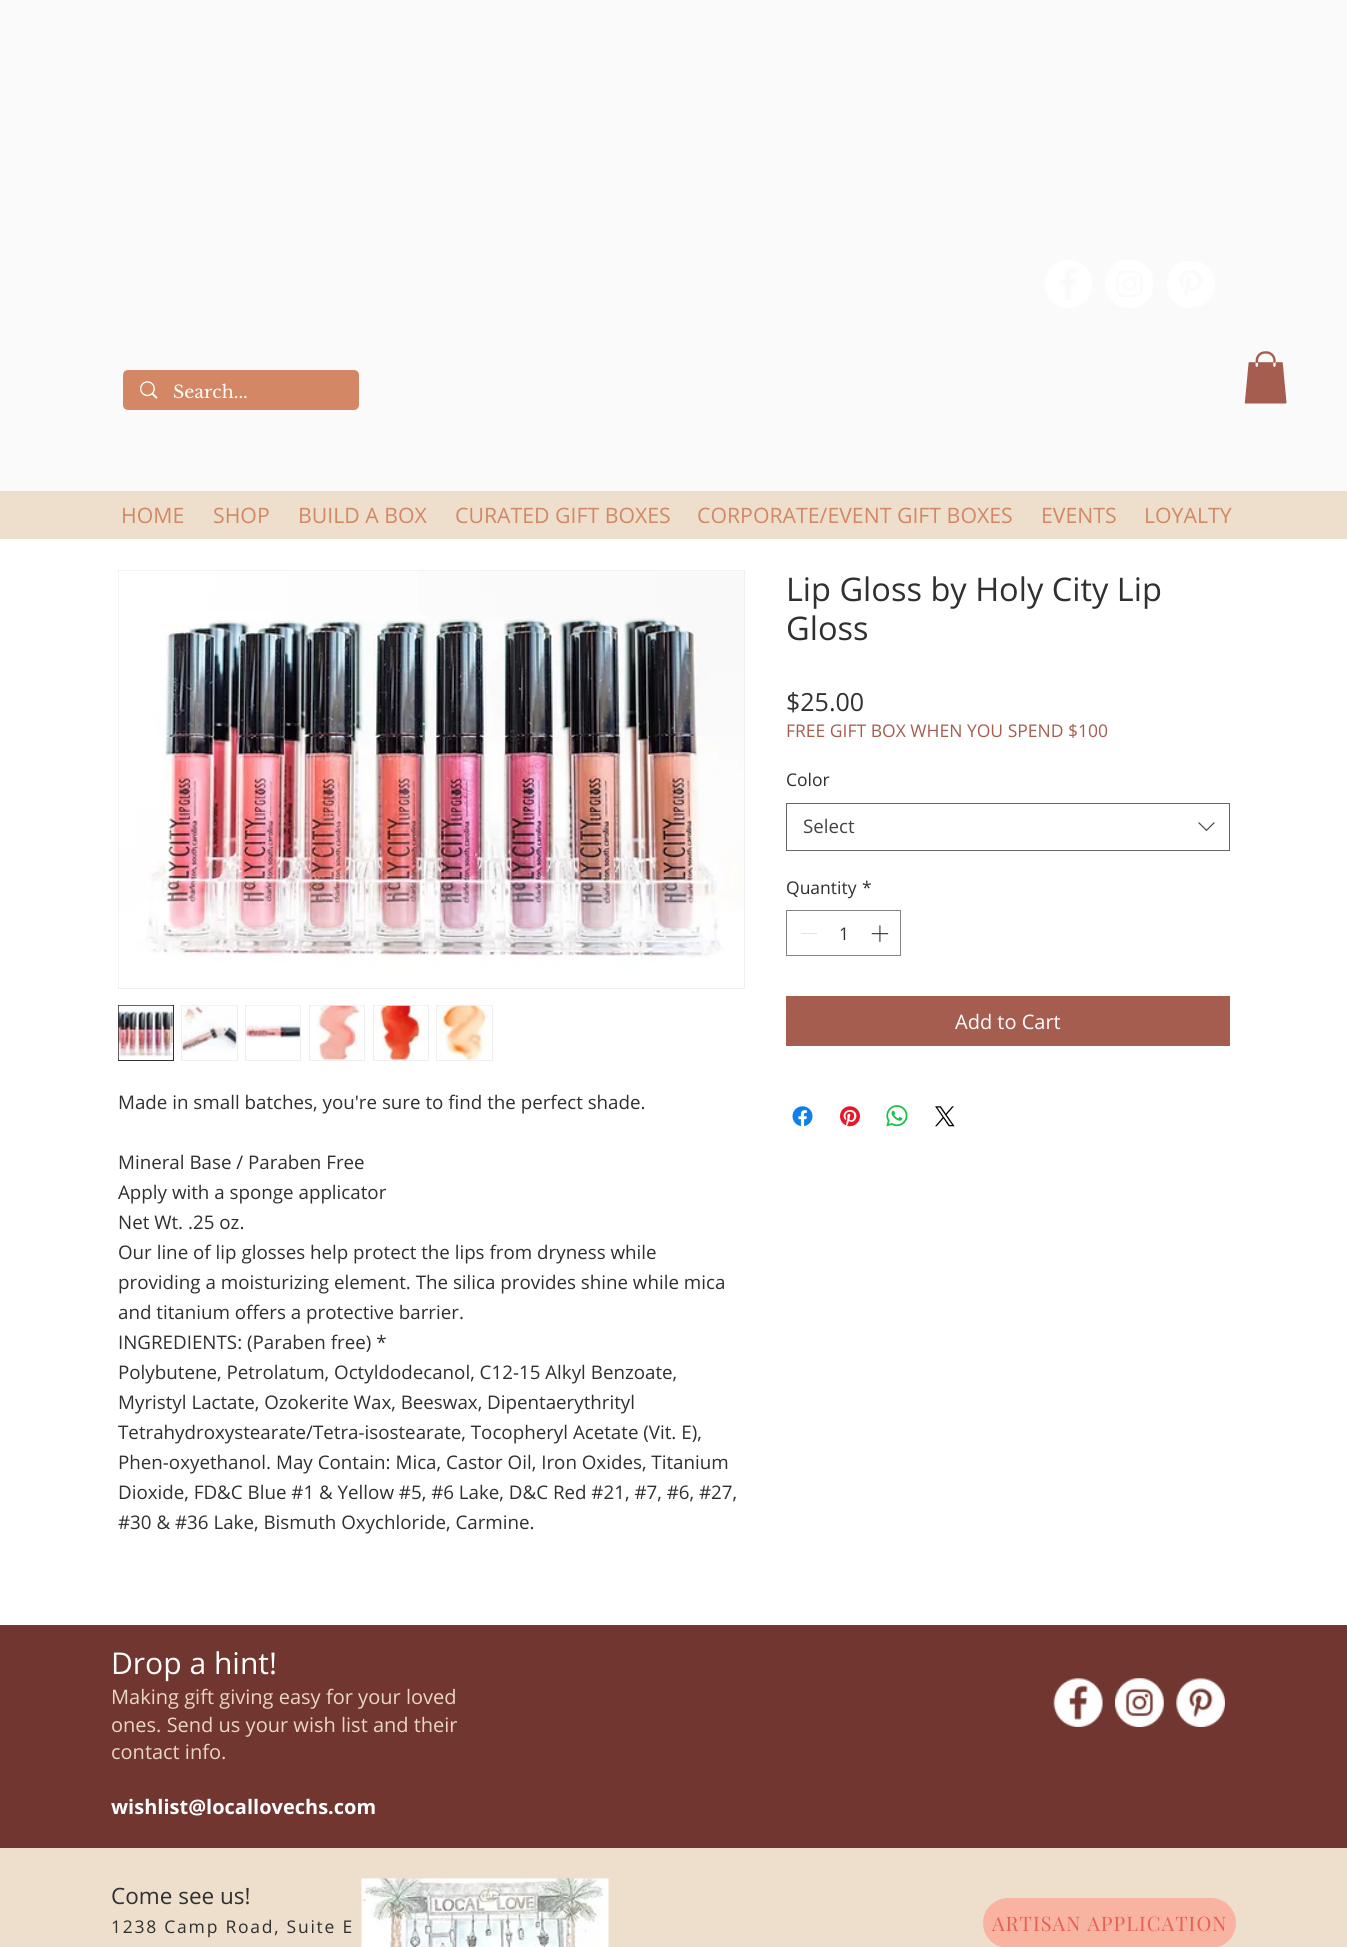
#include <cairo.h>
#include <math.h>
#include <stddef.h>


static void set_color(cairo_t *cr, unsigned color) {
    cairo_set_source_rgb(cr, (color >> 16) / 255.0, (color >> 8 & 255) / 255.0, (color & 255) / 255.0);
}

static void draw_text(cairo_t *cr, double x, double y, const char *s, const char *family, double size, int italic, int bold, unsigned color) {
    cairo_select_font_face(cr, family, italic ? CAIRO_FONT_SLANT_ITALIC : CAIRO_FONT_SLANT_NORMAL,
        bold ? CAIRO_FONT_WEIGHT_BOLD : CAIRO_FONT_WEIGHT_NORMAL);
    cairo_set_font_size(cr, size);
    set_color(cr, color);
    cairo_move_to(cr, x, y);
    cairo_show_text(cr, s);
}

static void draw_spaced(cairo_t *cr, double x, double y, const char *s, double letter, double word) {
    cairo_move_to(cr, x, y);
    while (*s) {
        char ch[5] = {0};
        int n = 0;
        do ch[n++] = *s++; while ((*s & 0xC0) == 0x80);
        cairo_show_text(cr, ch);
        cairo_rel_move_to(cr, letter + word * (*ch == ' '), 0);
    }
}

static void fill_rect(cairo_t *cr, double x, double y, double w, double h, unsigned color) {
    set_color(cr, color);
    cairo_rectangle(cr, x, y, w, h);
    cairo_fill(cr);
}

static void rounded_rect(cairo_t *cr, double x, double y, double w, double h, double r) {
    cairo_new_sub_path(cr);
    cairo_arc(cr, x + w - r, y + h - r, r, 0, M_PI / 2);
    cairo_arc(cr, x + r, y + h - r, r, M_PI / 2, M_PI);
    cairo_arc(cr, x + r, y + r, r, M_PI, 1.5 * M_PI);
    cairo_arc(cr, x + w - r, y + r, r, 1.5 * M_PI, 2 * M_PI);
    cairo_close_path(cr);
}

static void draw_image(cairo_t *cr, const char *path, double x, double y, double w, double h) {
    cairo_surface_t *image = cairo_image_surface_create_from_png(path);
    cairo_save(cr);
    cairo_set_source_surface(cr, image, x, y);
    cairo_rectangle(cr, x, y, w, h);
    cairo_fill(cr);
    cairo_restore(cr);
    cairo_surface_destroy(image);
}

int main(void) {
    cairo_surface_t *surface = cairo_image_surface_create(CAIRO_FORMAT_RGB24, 1347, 1947);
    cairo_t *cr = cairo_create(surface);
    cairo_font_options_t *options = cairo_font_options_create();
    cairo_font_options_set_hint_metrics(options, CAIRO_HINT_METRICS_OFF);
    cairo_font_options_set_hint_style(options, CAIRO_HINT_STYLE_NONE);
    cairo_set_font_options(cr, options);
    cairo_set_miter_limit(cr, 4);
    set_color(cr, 0xFFFFFF);
    cairo_paint(cr);
    fill_rect(cr, 0, 0, 1347, 491, 0xFAFAFA);
    draw_image(cr, "assets/img1.png", 1045, 260, 47, 48);
    draw_image(cr, "assets/img2.png", 1105, 260, 48, 48);
    draw_image(cr, "assets/img3.png", 1167, 261, 48, 47);
    set_color(cr, 0xD48764);
    rounded_rect(cr, 123, 370, 236, 40, 5);
    cairo_fill(cr);
    draw_image(cr, "assets/img4.png", 140, 381, 18, 18);
    draw_text(cr, 173, 398, "Search...", "Libre Baskerville", 17.5, 0, 0, 0xFFFFFF);
    draw_image(cr, "assets/img5.png", 1244, 351, 43, 53);
    fill_rect(cr, 0, 491, 1347, 48, 0xEEDFCC);
    draw_text(cr, 121, 523, "HOME", "Open Sans", 21.25, 0, 0, 0xD48764);
    draw_text(cr, 213, 523, "SHOP", "Open Sans", 21.25, 0, 0, 0xD48764);
    draw_text(cr, 298, 523, "BUILD A BOX", "Open Sans", 21.25, 0, 0, 0xD48764);
    draw_text(cr, 455, 523, "CURATED GIFT BOXES", "Open Sans", 21.25, 0, 0, 0xD48764);
    draw_text(cr, 697, 523, "CORPORATE/EVENT GIFT BOXES", "Open Sans", 21.25, 0, 0, 0xD48764);
    draw_text(cr, 1041, 523, "EVENTS", "Open Sans", 21.25, 0, 0, 0xD48764);
    draw_text(cr, 1144, 523, "LOYALTY", "Open Sans", 21.25, 0, 0, 0xD48764);
    draw_text(cr, 786, 601, "Lip Gloss by Holy City Lip", "Open Sans", 32.5, 0, 0, 0x303030);
    draw_text(cr, 786, 640, "Gloss", "Open Sans", 32.5, 0, 0, 0x303030);
    draw_text(cr, 786, 711, "$25.00", "Open Sans", 25, 0, 0, 0x303030);
    draw_text(cr, 786, 737, "FREE GIFT BOX WHEN YOU SPEND $100", "Open Sans", 17.5, 0, 0, 0xA55D50);
    draw_text(cr, 786, 786, "Color", "Open Sans", 17.5, 0, 0, 0x303030);
    cairo_rectangle(cr, 786.5, 803.5, 443, 47);
    set_color(cr, 0x666666);
    cairo_set_line_width(cr, 1);
    cairo_stroke(cr);
    draw_text(cr, 803, 833, "Select", "Open Sans", 18.75, 0, 0, 0x444444);
    draw_image(cr, "assets/img6.png", 1198, 822, 17, 10);
    draw_text(cr, 786, 894, "Quantity", "Open Sans", 17.5, 0, 0, 0x303030);
    draw_text(cr, 862, 894, "*", "Open Sans", 17.5, 0, 0, 0x303030);
    cairo_rectangle(cr, 786.5, 910.5, 114, 45);
    set_color(cr, 0x838383);
    cairo_stroke(cr);
    fill_rect(cr, 801, 933, 16, 1, 0xE3E3E3);
    draw_text(cr, 839, 940, "1", "Open Sans", 17.5, 0, 0, 0x303030);
    draw_image(cr, "assets/img7.png", 871, 925, 18, 17);
    fill_rect(cr, 786, 996, 444, 50, 0xA55D50);
    draw_text(cr, 955, 1029, "Add to Cart", "Open Sans", 20, 0, 0, 0xFFFFFF);
    draw_image(cr, "assets/img8.png", 792, 1106, 21, 21);
    draw_image(cr, "assets/img9.png", 840, 1106, 20, 21);
    draw_image(cr, "assets/img10.png", 886, 1105, 22, 22);
    draw_image(cr, "assets/img11.png", 935, 1106, 20, 21);
    cairo_rectangle(cr, 118.5, 570.5, 626, 418);
    set_color(cr, 0xEFEFEF);
    cairo_stroke(cr);
    draw_image(cr, "assets/img12.png", 118, 570, 626, 417);
    cairo_rectangle(cr, 118.5, 1005.5, 55, 55);
    set_color(cr, 0x303030);
    cairo_stroke(cr);
    draw_image(cr, "assets/img13.png", 118, 1005, 55, 55);
    cairo_rectangle(cr, 181.5, 1005.5, 56, 55);
    set_color(cr, 0xEFEFEF);
    cairo_stroke(cr);
    draw_image(cr, "assets/img14.png", 182, 1005, 55, 48);
    cairo_rectangle(cr, 245.5, 1005.5, 55, 55);
    cairo_stroke(cr);
    draw_image(cr, "assets/img15.png", 245, 1005, 56, 35);
    cairo_rectangle(cr, 309.5, 1005.5, 55, 55);
    cairo_stroke(cr);
    draw_image(cr, "assets/img16.png", 311, 1005, 52, 55);
    cairo_rectangle(cr, 373.5, 1005.5, 55, 55);
    cairo_stroke(cr);
    draw_image(cr, "assets/img17.png", 374, 1005, 52, 55);
    cairo_rectangle(cr, 436.5, 1005.5, 56, 55);
    cairo_stroke(cr);
    draw_image(cr, "assets/img18.png", 437, 1005, 53, 55);
    draw_text(cr, 118, 1109, "Made in small batches, you're sure to find the perfect shade.", "Open Sans", 18.75, 0, 0, 0x303030);
    draw_text(cr, 118, 1169, "Mineral Base / Paraben Free", "Open Sans", 18.75, 0, 0, 0x303030);
    draw_text(cr, 118, 1199, "Apply with a sponge applicator", "Open Sans", 18.75, 0, 0, 0x303030);
    draw_text(cr, 118, 1229, "Net Wt. .25 oz.", "Open Sans", 18.75, 0, 0, 0x303030);
    draw_text(cr, 118, 1259, "Our line of lip glosses help protect the lips from dryness while", "Open Sans", 18.75, 0, 0, 0x303030);
    draw_text(cr, 118, 1289, "providing a moisturizing element. The silica provides shine while mica", "Open Sans", 18.75, 0, 0, 0x303030);
    draw_text(cr, 118, 1319, "and titanium offers a protective barrier.", "Open Sans", 18.75, 0, 0, 0x303030);
    draw_text(cr, 118, 1349, "INGREDIENTS: (Paraben free) *", "Open Sans", 18.75, 0, 0, 0x303030);
    draw_text(cr, 118, 1379, "Polybutene, Petrolatum, Octyldodecanol, C12-15 Alkyl Benzoate,", "Open Sans", 18.75, 0, 0, 0x303030);
    draw_text(cr, 118, 1409, "Myristyl Lactate, Ozokerite Wax, Beeswax, Dipentaerythrityl", "Open Sans", 18.75, 0, 0, 0x303030);
    draw_text(cr, 118, 1439, "Tetrahydroxystearate/Tetra-isostearate, Tocopheryl Acetate (Vit. E),", "Open Sans", 18.75, 0, 0, 0x303030);
    draw_text(cr, 118, 1469, "Phen-oxyethanol. May Contain: Mica, Castor Oil, Iron Oxides, Titanium", "Open Sans", 18.75, 0, 0, 0x303030);
    draw_text(cr, 118, 1499, "Dioxide, FD&C Blue #1 & Yellow #5, #6 Lake, D&C Red #21, #7, #6, #27,", "Open Sans", 18.75, 0, 0, 0x303030);
    draw_text(cr, 118, 1529, "#30 & #36 Lake, Bismuth Oxychloride, Carmine.", "Open Sans", 18.75, 0, 0, 0x303030);
    fill_rect(cr, 0, 1625, 1347, 223, 0x70362F);
    draw_text(cr, 111, 1674, "Drop a hint!", "Open Sans", 30, 0, 0, 0xFFFFFF);
    draw_text(cr, 111, 1704, "Making gift giving easy for your loved", "Open Sans", 20, 0, 0, 0xE9D7C2);
    draw_text(cr, 111, 1732, "ones. Send us your wish list and their", "Open Sans", 20, 0, 0, 0xE9D7C2);
    draw_text(cr, 111, 1759, "contact info.", "Open Sans", 20, 0, 0, 0xE9D7C2);
    draw_text(cr, 111, 1814, "wishlist@locallovechs.com", "Open Sans", 20, 0, 1, 0xFFFFFF);
    draw_image(cr, "assets/img19.png", 1053, 1678, 50, 49);
    draw_image(cr, "assets/img20.png", 1115, 1678, 49, 49);
    draw_image(cr, "assets/img21.png", 1176, 1678, 49, 49);
    fill_rect(cr, 0, 1848, 1347, 99, 0xEEDFCC);
    draw_text(cr, 111, 1904, "Come see us!", "Open Sans", 22.5, 0, 0, 0x303030);
    cairo_set_font_size(cr, 17.5);
    draw_spaced(cr, 111, 1933, "1238 Camp Road, Suite E", 1.75, 0);
    draw_image(cr, "assets/img22.png", 361, 1878, 248, 69);
    set_color(cr, 0xF8B4A0);
    rounded_rect(cr, 983, 1898, 253, 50, 25);
    cairo_fill(cr);
    cairo_select_font_face(cr, "Playfair Display", CAIRO_FONT_SLANT_NORMAL, CAIRO_FONT_WEIGHT_NORMAL);
    cairo_set_font_size(cr, 20);
    set_color(cr, 0xE65F53);
    draw_spaced(cr, 992, 1931, "ARTISAN APPLICATION", 1, 0);
    cairo_surface_write_to_png(surface, "output.png");
    cairo_font_options_destroy(options);
    cairo_destroy(cr);
    cairo_surface_destroy(surface);
    return 0;
}
